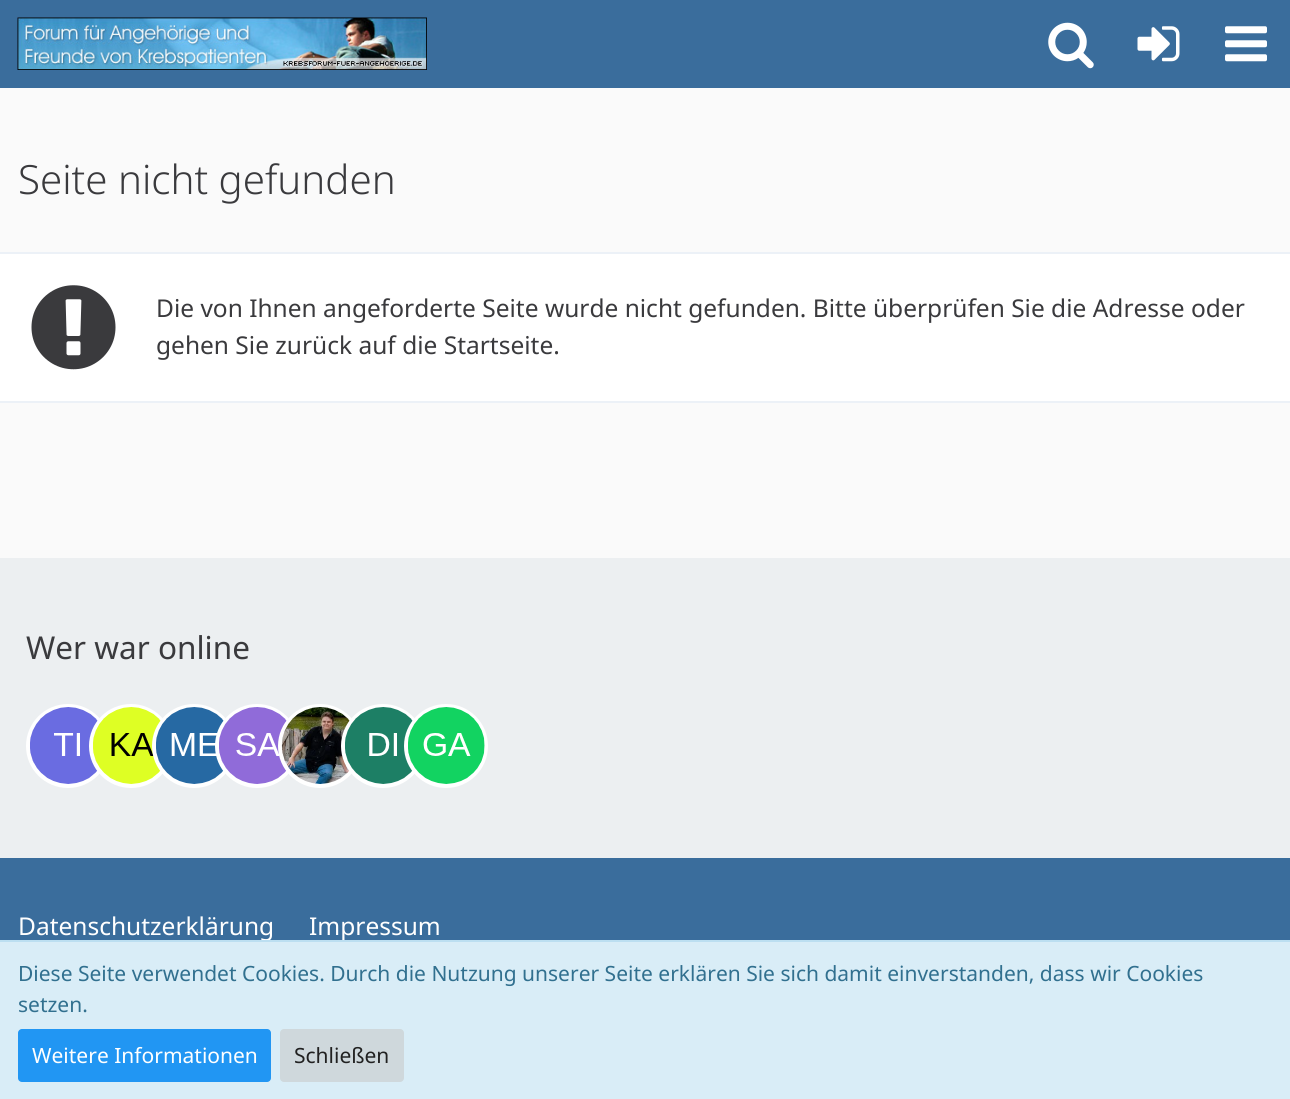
#include <cairo.h>
#include <math.h>
#include <stddef.h>


static void set_color(cairo_t *cr, unsigned color) {
    cairo_set_source_rgb(cr, (color >> 16) / 255.0, (color >> 8 & 255) / 255.0, (color & 255) / 255.0);
}

static void draw_text(cairo_t *cr, double x, double y, const char *s, const char *family, double size, int italic, int bold, unsigned color) {
    cairo_select_font_face(cr, family, italic ? CAIRO_FONT_SLANT_ITALIC : CAIRO_FONT_SLANT_NORMAL,
        bold ? CAIRO_FONT_WEIGHT_BOLD : CAIRO_FONT_WEIGHT_NORMAL);
    cairo_set_font_size(cr, size);
    set_color(cr, color);
    cairo_move_to(cr, x, y);
    cairo_show_text(cr, s);
}

static void fill_rect(cairo_t *cr, double x, double y, double w, double h, unsigned color) {
    set_color(cr, color);
    cairo_rectangle(cr, x, y, w, h);
    cairo_fill(cr);
}

static void rounded_rect(cairo_t *cr, double x, double y, double w, double h, double r) {
    cairo_new_sub_path(cr);
    cairo_arc(cr, x + w - r, y + h - r, r, 0, M_PI / 2);
    cairo_arc(cr, x + r, y + h - r, r, M_PI / 2, M_PI);
    cairo_arc(cr, x + r, y + r, r, M_PI, 1.5 * M_PI);
    cairo_arc(cr, x + w - r, y + r, r, 1.5 * M_PI, 2 * M_PI);
    cairo_close_path(cr);
}

static void draw_image(cairo_t *cr, const char *path, double x, double y, double w, double h) {
    cairo_surface_t *image = cairo_image_surface_create_from_png(path);
    cairo_save(cr);
    cairo_set_source_surface(cr, image, x, y);
    cairo_rectangle(cr, x, y, w, h);
    cairo_fill(cr);
    cairo_restore(cr);
    cairo_surface_destroy(image);
}

int main(void) {
    cairo_surface_t *surface = cairo_image_surface_create(CAIRO_FORMAT_RGB24, 1290, 1099);
    cairo_t *cr = cairo_create(surface);
    cairo_font_options_t *options = cairo_font_options_create();
    cairo_font_options_set_hint_metrics(options, CAIRO_HINT_METRICS_OFF);
    cairo_font_options_set_hint_style(options, CAIRO_HINT_STYLE_NONE);
    cairo_set_font_options(cr, options);
    cairo_set_miter_limit(cr, 4);
    set_color(cr, 0xFAFAFA);
    cairo_paint(cr);
    fill_rect(cr, 0, 0, 1290, 88, 0x3A6D9C);
    draw_image(cr, "assets/img1.png", 17, 17, 410, 53);
    draw_image(cr, "assets/img2.png", 1048, 22, 46, 47);
    draw_image(cr, "assets/img3.png", 1137, 26, 43, 36);
    draw_image(cr, "assets/img4.png", 1225, 26, 42, 36);
    draw_text(cr, 18, 194, "Seite nicht gefunden", "Noto Sans Light", 40.25, 0, 0, 0x3A3A3D);
    fill_rect(cr, 0, 254, 1290, 147, 0xFFFFFF);
    fill_rect(cr, 0, 252, 1290, 2, 0xECF1F7);
    fill_rect(cr, 0, 401, 1290, 2, 0xECF1F7);
    draw_image(cr, "assets/img5.png", 31, 285, 85, 85);
    draw_text(cr, 156, 317, "Die von Ihnen angeforderte Seite wurde nicht gefunden. Bitte überprüfen Sie die Adresse oder", "Noto Sans", 24.5, 0, 0, 0x3A3A3D);
    draw_text(cr, 156, 354, "gehen Sie zurück auf die Startseite.", "Noto Sans", 24.5, 0, 0, 0x3A3A3D);
    fill_rect(cr, 0, 558, 1290, 300, 0xECEFF1);
    draw_text(cr, 26, 659, "Wer war online", "Noto Sans", 31.5, 0, 0, 0x3A3A3D);
    set_color(cr, 0xFFFFFF);
    cairo_new_path(cr);
    cairo_arc(cr, 68, 746, 40, 0, 2 * M_PI);
    cairo_fill_preserve(cr);
    cairo_set_line_width(cr, 4);
    cairo_stroke(cr);
    draw_image(cr, "assets/img6.png", 30, 707, 68, 77);
    cairo_arc(cr, 131, 746, 40, 0, 2 * M_PI);
    cairo_fill_preserve(cr);
    cairo_stroke(cr);
    draw_image(cr, "assets/img7.png", 93, 707, 68, 77);
    cairo_arc(cr, 194, 746, 40, 0, 2 * M_PI);
    cairo_fill_preserve(cr);
    cairo_stroke(cr);
    draw_image(cr, "assets/img8.png", 156, 707, 68, 77);
    cairo_arc(cr, 257, 746, 40, 0, 2 * M_PI);
    cairo_fill_preserve(cr);
    cairo_stroke(cr);
    draw_image(cr, "assets/img9.png", 219, 707, 68, 77);
    cairo_arc(cr, 320, 746, 40, 0, 2 * M_PI);
    cairo_fill_preserve(cr);
    cairo_stroke(cr);
    draw_image(cr, "assets/img10.png", 281, 707, 69, 77);
    cairo_arc(cr, 383, 746, 40, 0, 2 * M_PI);
    cairo_fill_preserve(cr);
    cairo_stroke(cr);
    draw_image(cr, "assets/img11.png", 345, 707, 68, 77);
    cairo_arc(cr, 446, 746, 40, 0, 2 * M_PI);
    cairo_fill_preserve(cr);
    cairo_stroke(cr);
    draw_image(cr, "assets/img12.png", 408, 707, 77, 77);
    fill_rect(cr, 0, 858, 1290, 82, 0x3A6D9C);
    draw_text(cr, 18, 935, "Datenschutzerklärung", "Noto Sans", 24.5, 0, 0, 0xFFFFFF);
    draw_text(cr, 309, 935, "Impressum", "Noto Sans", 24.5, 0, 0, 0xFFFFFF);
    fill_rect(cr, 0, 942, 1290, 157, 0xD9EDF7);
    fill_rect(cr, 0, 940, 1290, 2, 0xBCDFF1);
    draw_text(cr, 18, 981, "Diese Seite verwendet Cookies. Durch die Nutzung unserer Seite erklären Sie sich damit einverstanden, dass wir Cookies", "Noto Sans", 21, 0, 0, 0x31708F);
    draw_text(cr, 18, 1012, "setzen.", "Noto Sans", 21, 0, 0, 0x31708F);
    set_color(cr, 0x2196F3);
    rounded_rect(cr, 18, 1029, 253, 53, 4);
    cairo_fill(cr);
    draw_text(cr, 32, 1063, "Weitere Informationen", "Noto Sans", 21, 0, 0, 0xFFFFFF);
    set_color(cr, 0xCFD8DC);
    rounded_rect(cr, 280, 1029, 124, 53, 4);
    cairo_fill(cr);
    draw_text(cr, 294, 1063, "Schließen", "Noto Sans", 21, 0, 0, 0x212121);
    cairo_surface_write_to_png(surface, "output.png");
    cairo_font_options_destroy(options);
    cairo_destroy(cr);
    cairo_surface_destroy(surface);
    return 0;
}
